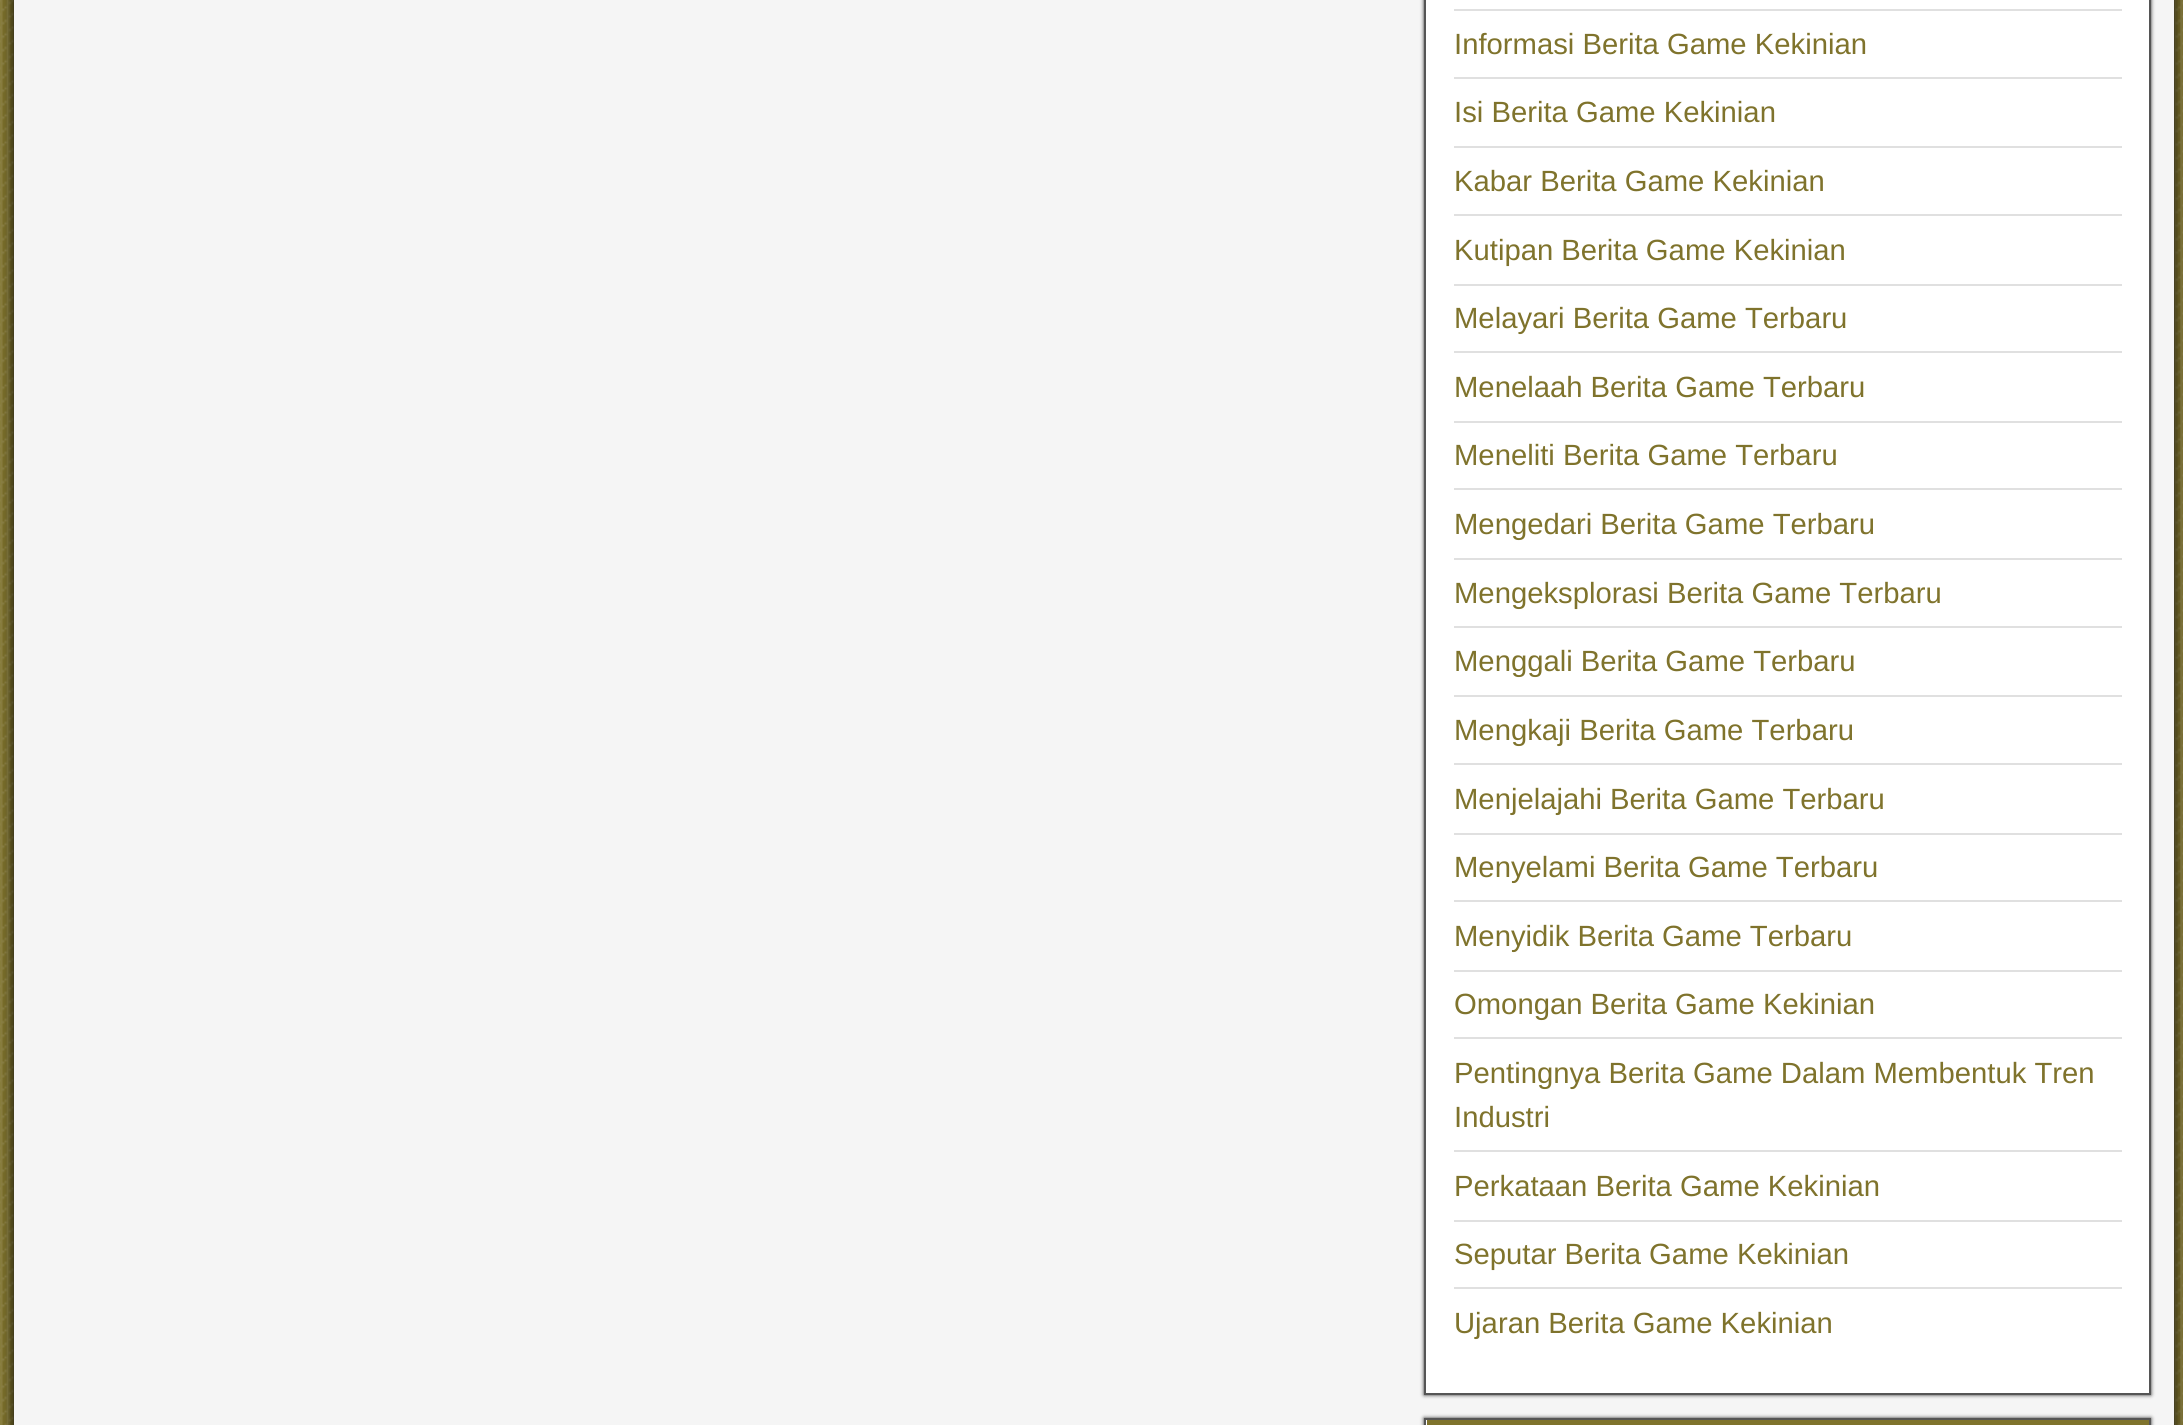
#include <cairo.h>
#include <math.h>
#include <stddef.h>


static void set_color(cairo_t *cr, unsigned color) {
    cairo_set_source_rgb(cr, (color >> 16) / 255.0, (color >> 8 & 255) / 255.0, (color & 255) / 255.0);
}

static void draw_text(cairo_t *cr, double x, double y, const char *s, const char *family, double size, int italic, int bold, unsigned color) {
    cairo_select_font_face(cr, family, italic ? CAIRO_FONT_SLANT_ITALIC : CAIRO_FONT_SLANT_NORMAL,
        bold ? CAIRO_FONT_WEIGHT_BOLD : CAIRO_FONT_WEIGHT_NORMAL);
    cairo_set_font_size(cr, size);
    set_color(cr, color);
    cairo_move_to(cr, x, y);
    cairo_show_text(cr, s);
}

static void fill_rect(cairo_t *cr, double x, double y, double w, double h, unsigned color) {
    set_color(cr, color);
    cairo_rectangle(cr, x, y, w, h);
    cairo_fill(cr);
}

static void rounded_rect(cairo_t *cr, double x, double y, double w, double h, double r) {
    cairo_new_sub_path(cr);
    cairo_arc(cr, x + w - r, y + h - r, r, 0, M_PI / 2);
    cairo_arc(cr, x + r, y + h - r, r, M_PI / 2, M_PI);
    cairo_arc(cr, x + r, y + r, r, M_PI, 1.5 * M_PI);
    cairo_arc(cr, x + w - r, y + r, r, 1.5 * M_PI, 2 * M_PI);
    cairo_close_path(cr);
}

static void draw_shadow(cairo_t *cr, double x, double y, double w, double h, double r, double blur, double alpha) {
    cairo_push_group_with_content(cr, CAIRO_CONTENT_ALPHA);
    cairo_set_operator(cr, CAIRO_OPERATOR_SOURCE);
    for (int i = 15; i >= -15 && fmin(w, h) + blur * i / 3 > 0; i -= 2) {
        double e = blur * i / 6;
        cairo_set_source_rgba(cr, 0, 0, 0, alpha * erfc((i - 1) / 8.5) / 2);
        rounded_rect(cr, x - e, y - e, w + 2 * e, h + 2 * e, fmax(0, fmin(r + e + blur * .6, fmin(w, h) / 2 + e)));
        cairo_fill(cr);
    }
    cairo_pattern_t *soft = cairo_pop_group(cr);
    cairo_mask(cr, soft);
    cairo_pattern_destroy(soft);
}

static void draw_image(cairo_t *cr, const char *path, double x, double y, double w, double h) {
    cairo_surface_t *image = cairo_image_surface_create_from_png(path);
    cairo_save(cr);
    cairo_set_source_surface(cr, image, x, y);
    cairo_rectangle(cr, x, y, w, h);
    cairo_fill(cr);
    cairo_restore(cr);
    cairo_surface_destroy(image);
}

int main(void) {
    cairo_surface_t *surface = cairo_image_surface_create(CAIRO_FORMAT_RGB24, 2183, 1425);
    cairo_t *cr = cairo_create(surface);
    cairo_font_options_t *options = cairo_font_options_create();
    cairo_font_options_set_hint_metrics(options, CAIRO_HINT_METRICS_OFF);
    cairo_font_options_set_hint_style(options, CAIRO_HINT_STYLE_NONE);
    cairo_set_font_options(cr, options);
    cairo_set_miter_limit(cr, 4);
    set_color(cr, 0x7F732C);
    cairo_paint(cr);
    draw_image(cr, "assets/img1.png", 0, 0, 2183, 1425);
    set_color(cr, 0x000000);
    draw_shadow(cr, 14, -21, 2160, 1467, 0, 7, 1);
    fill_rect(cr, 14, 0, 2160, 1425, 0xF5F5F5);
    set_color(cr, 0x333333);
    draw_shadow(cr, 1424, -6, 727, 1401, 0, 2, 1);
    set_color(cr, 0xFFFFFF);
    cairo_rectangle(cr, 1425, -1, 725, 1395);
    cairo_fill_preserve(cr);
    set_color(cr, 0x555555);
    cairo_stroke(cr);
    fill_rect(cr, 1454, 9, 668, 2, 0xE0E0E0);
    fill_rect(cr, 1454, 77, 668, 2, 0xE0E0E0);
    draw_text(cr, 1454, 54, "Informasi Berita Game Kekinian", "Liberation Sans", 29.25, 0, 0, 0x7F732C);
    fill_rect(cr, 1454, 146, 668, 2, 0xE0E0E0);
    draw_text(cr, 1454, 122, "Isi Berita Game Kekinian", "Liberation Sans", 29.25, 0, 0, 0x7F732C);
    fill_rect(cr, 1454, 214, 668, 2, 0xE0E0E0);
    draw_text(cr, 1454, 191, "Kabar Berita Game Kekinian", "Liberation Sans", 29.25, 0, 0, 0x7F732C);
    fill_rect(cr, 1454, 284, 668, 2, 0xE0E0E0);
    draw_text(cr, 1454, 260, "Kutipan Berita Game Kekinian", "Liberation Sans", 29.25, 0, 0, 0x7F732C);
    fill_rect(cr, 1454, 351, 668, 2, 0xE0E0E0);
    draw_text(cr, 1454, 328, "Melayari Berita Game Terbaru", "Liberation Sans", 29.25, 0, 0, 0x7F732C);
    fill_rect(cr, 1454, 421, 668, 2, 0xE0E0E0);
    draw_text(cr, 1454, 397, "Menelaah Berita Game Terbaru", "Liberation Sans", 29.25, 0, 0, 0x7F732C);
    fill_rect(cr, 1454, 488, 668, 2, 0xE0E0E0);
    draw_text(cr, 1454, 465, "Meneliti Berita Game Terbaru", "Liberation Sans", 29.25, 0, 0, 0x7F732C);
    fill_rect(cr, 1454, 558, 668, 2, 0xE0E0E0);
    draw_text(cr, 1454, 534, "Mengedari Berita Game Terbaru", "Liberation Sans", 29.25, 0, 0, 0x7F732C);
    fill_rect(cr, 1454, 626, 668, 2, 0xE0E0E0);
    draw_text(cr, 1454, 603, "Mengeksplorasi Berita Game Terbaru", "Liberation Sans", 29.25, 0, 0, 0x7F732C);
    fill_rect(cr, 1454, 695, 668, 2, 0xE0E0E0);
    draw_text(cr, 1454, 671, "Menggali Berita Game Terbaru", "Liberation Sans", 29.25, 0, 0, 0x7F732C);
    fill_rect(cr, 1454, 763, 668, 2, 0xE0E0E0);
    draw_text(cr, 1454, 740, "Mengkaji Berita Game Terbaru", "Liberation Sans", 29.25, 0, 0, 0x7F732C);
    fill_rect(cr, 1454, 833, 668, 2, 0xE0E0E0);
    draw_text(cr, 1454, 809, "Menjelajahi Berita Game Terbaru", "Liberation Sans", 29.25, 0, 0, 0x7F732C);
    fill_rect(cr, 1454, 900, 668, 2, 0xE0E0E0);
    draw_text(cr, 1454, 877, "Menyelami Berita Game Terbaru", "Liberation Sans", 29.25, 0, 0, 0x7F732C);
    fill_rect(cr, 1454, 970, 668, 2, 0xE0E0E0);
    draw_text(cr, 1454, 946, "Menyidik Berita Game Terbaru", "Liberation Sans", 29.25, 0, 0, 0x7F732C);
    fill_rect(cr, 1454, 1037, 668, 2, 0xE0E0E0);
    draw_text(cr, 1454, 1014, "Omongan Berita Game Kekinian", "Liberation Sans", 29.25, 0, 0, 0x7F732C);
    fill_rect(cr, 1454, 1150, 668, 2, 0xE0E0E0);
    draw_text(cr, 1454, 1083, "Pentingnya Berita Game Dalam Membentuk Tren", "Liberation Sans", 29.25, 0, 0, 0x7F732C);
    draw_text(cr, 1454, 1127, "Industri", "Liberation Sans", 29.25, 0, 0, 0x7F732C);
    fill_rect(cr, 1454, 1220, 668, 2, 0xE0E0E0);
    draw_text(cr, 1454, 1196, "Perkataan Berita Game Kekinian", "Liberation Sans", 29.25, 0, 0, 0x7F732C);
    fill_rect(cr, 1454, 1287, 668, 2, 0xE0E0E0);
    draw_text(cr, 1454, 1264, "Seputar Berita Game Kekinian", "Liberation Sans", 29.25, 0, 0, 0x7F732C);
    draw_text(cr, 1454, 1333, "Ujaran Berita Game Kekinian", "Liberation Sans", 29.25, 0, 0, 0x7F732C);
    set_color(cr, 0x333333);
    draw_shadow(cr, 1424, 1418, 727, 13, 0, 2, 1);
    fill_rect(cr, 1424, 1420, 3, 5, 0xFFFFFF);
    cairo_rectangle(cr, 1425, 1419, 725, 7);
    set_color(cr, 0x555555);
    cairo_stroke(cr);
    fill_rect(cr, 1427, 1420, 722, 5, 0x7F732C);
    cairo_surface_write_to_png(surface, "output.png");
    cairo_font_options_destroy(options);
    cairo_destroy(cr);
    cairo_surface_destroy(surface);
    return 0;
}
